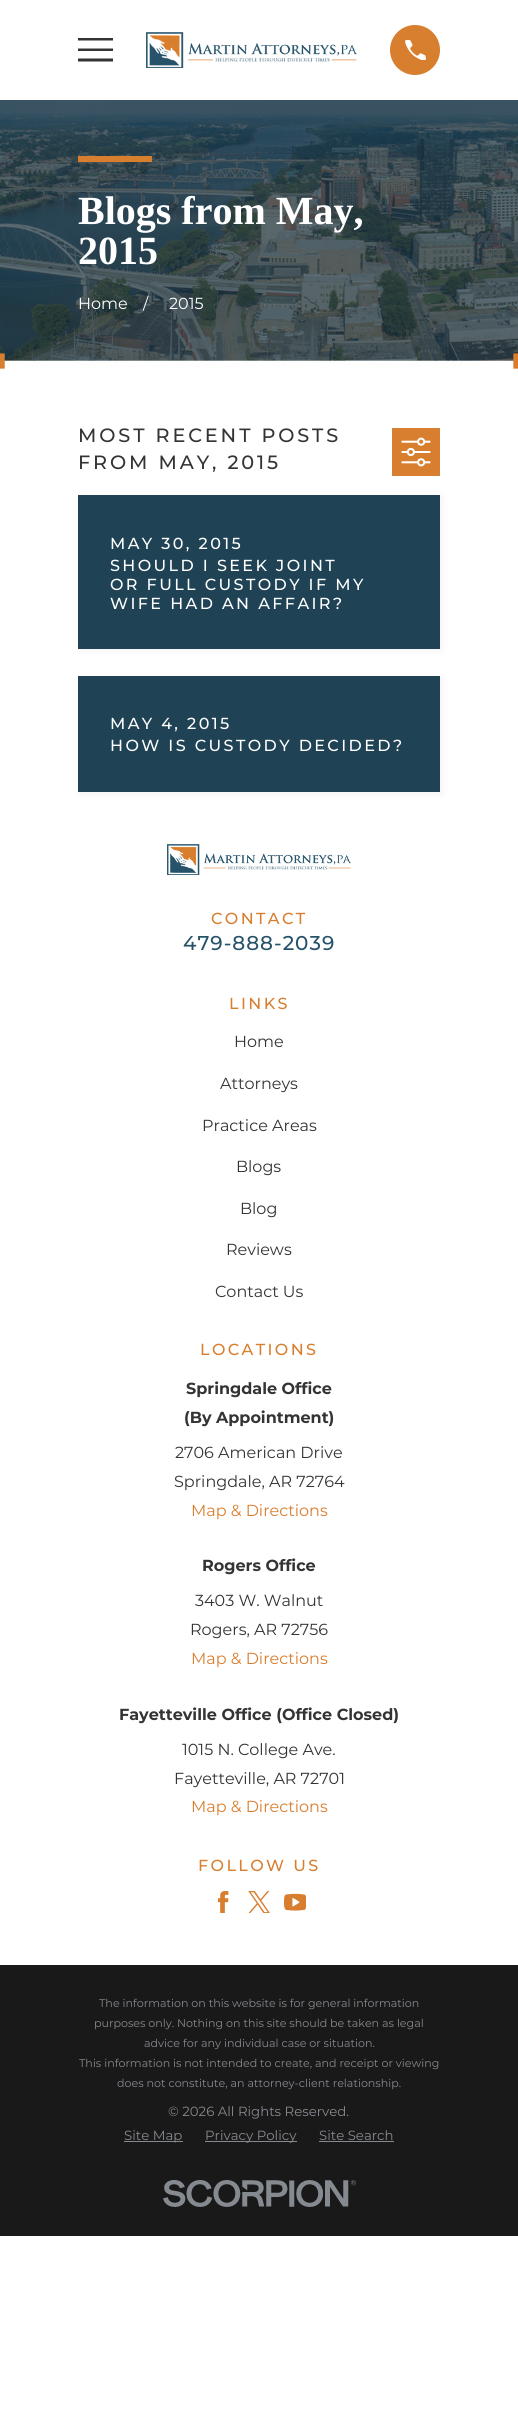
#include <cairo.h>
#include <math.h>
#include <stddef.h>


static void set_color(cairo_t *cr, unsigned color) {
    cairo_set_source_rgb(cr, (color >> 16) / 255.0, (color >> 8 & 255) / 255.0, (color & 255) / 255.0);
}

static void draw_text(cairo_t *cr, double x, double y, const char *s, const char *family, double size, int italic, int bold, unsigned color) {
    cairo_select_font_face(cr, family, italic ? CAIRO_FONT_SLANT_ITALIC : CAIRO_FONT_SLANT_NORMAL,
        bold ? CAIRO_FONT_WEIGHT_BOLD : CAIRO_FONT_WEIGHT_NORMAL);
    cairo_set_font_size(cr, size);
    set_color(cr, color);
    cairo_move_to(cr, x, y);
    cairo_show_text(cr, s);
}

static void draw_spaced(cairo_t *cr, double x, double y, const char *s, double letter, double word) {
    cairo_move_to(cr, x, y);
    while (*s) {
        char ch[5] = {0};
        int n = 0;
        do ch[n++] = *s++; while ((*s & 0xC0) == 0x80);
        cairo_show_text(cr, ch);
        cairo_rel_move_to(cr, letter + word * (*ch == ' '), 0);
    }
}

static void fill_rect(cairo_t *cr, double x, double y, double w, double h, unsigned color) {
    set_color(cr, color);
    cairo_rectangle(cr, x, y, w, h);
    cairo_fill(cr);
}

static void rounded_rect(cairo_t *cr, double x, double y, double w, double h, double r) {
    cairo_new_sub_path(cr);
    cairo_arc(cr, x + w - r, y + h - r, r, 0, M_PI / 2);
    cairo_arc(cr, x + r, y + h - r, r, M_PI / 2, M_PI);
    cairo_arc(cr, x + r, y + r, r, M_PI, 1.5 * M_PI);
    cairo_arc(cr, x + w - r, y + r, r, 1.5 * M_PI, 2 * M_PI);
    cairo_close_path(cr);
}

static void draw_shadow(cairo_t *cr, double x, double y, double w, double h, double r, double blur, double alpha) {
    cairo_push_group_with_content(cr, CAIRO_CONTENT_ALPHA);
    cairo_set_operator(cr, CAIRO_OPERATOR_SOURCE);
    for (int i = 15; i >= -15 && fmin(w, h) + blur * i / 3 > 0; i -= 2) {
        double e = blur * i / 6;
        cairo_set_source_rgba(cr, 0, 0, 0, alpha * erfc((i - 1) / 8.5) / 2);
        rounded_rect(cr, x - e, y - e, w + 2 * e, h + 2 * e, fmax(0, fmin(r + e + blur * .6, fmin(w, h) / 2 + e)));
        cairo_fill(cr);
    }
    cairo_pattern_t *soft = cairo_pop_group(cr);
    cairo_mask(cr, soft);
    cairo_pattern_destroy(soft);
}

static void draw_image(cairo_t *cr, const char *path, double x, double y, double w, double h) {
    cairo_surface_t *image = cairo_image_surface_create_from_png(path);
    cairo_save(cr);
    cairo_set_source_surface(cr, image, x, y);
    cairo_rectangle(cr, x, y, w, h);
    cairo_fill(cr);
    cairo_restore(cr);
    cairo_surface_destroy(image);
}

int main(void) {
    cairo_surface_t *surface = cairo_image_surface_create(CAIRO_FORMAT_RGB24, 518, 2410);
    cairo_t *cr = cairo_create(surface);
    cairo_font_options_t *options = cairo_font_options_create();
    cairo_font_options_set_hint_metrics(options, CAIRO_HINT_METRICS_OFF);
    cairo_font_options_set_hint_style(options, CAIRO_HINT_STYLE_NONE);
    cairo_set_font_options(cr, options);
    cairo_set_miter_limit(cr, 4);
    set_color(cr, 0xFFFFFF);
    cairo_paint(cr);
    set_color(cr, 0x343434);
    cairo_new_path(cr);
    cairo_move_to(cr, 78, 38);
    cairo_line_to(cr, 78, 40.5);
    cairo_line_to(cr, 113, 40.5);
    cairo_line_to(cr, 113, 38);
    cairo_close_path(cr);
    cairo_move_to(cr, 78, 48.5);
    cairo_line_to(cr, 78, 51);
    cairo_line_to(cr, 113, 51);
    cairo_line_to(cr, 113, 48.5);
    cairo_close_path(cr);
    cairo_move_to(cr, 78, 58.5);
    cairo_line_to(cr, 78, 61.5);
    cairo_line_to(cr, 113, 61.5);
    cairo_line_to(cr, 113, 58.5);
    cairo_close_path(cr);
    cairo_fill(cr);
    draw_image(cr, "assets/img1.png", 146, 32, 211, 36);
    set_color(cr, 0xD87E2F);
    cairo_arc(cr, 415, 50, 25, 0, 2 * M_PI);
    cairo_fill(cr);
    draw_image(cr, "assets/img2.png", 405, 40, 21, 20);
    draw_image(cr, "assets/img3.png", 0, 100, 518, 271);
    fill_rect(cr, 78, 156, 74, 6, 0xD87E2F);
    draw_text(cr, 78, 224, "Blogs from May,", "Liberation Serif", 40, 0, 1, 0xFFFFFF);
    draw_text(cr, 78, 264, "2015", "Liberation Serif", 40, 0, 1, 0xFFFFFF);
    draw_text(cr, 78, 309, "Home", "Montserrat", 16, 0, 0, 0xFFFFFF);
    draw_text(cr, 143, 309, "/", "Montserrat", 16, 0, 0, 0xFFFFFF);
    draw_text(cr, 169, 309, "2015", "Montserrat", 16, 0, 0, 0xFFFFFF);
    cairo_select_font_face(cr, "Montserrat Medium", CAIRO_FONT_SLANT_NORMAL, CAIRO_FONT_WEIGHT_NORMAL);
    cairo_set_font_size(cr, 19.25);
    set_color(cr, 0x343434);
    draw_spaced(cr, 78, 442, "MOST RECENT POSTS", 2.9, 0);
    draw_spaced(cr, 78, 469, "FROM MAY, 2015", 2.9, 0);
    fill_rect(cr, 392, 428, 48, 48, 0xD87E2F);
    draw_image(cr, "assets/img4.png", 401, 437, 30, 30);
    set_color(cr, 0x000000);
    draw_shadow(cr, 80, 497, 362, 154, 0, 4, 0.05);
    fill_rect(cr, 78, 495, 362, 154, 0x1F4254);
    cairo_set_font_size(cr, 16);
    set_color(cr, 0xFFFFFF);
    draw_spaced(cr, 110, 549, "MAY 30, 2015", 2.4, 0);
    draw_spaced(cr, 110, 571, "SHOULD I SEEK JOINT", 2.4, 0);
    draw_spaced(cr, 110, 590, "OR FULL CUSTODY IF MY", 2.4, 0);
    draw_spaced(cr, 110, 609, "WIFE HAD AN AFFAIR?", 2.4, 0);
    set_color(cr, 0x000000);
    draw_shadow(cr, 80, 678, 362, 116, 0, 4, 0.05);
    fill_rect(cr, 78, 676, 362, 116, 0x1F4254);
    set_color(cr, 0xFFFFFF);
    draw_spaced(cr, 110, 729, "MAY 4, 2015", 2.4, 0);
    draw_spaced(cr, 110, 751, "HOW IS CUSTODY DECIDED?", 2.4, 0);
    draw_image(cr, "assets/img5.png", 167, 844, 184, 31);
    set_color(cr, 0xD87E2F);
    draw_spaced(cr, 211, 924, "CONTACT", 2.4, 0);
    cairo_set_font_size(cr, 20);
    set_color(cr, 0x26536A);
    draw_spaced(cr, 183, 950, "479-888-2039", 1, 0);
    cairo_set_font_size(cr, 16);
    set_color(cr, 0xD87E2F);
    draw_spaced(cr, 229, 1009, "LINKS", 2.4, 0);
    draw_text(cr, 234, 1047, "Home", "Montserrat", 16, 0, 0, 0x343434);
    draw_text(cr, 220, 1089, "Attorneys", "Montserrat", 16, 0, 0, 0x343434);
    draw_text(cr, 202, 1131, "Practice Areas", "Montserrat", 16, 0, 0, 0x343434);
    draw_text(cr, 236, 1172, "Blogs", "Montserrat", 16, 0, 0, 0x343434);
    draw_text(cr, 240, 1214, "Blog", "Montserrat", 16, 0, 0, 0x343434);
    draw_text(cr, 226, 1255, "Reviews", "Montserrat", 16, 0, 0, 0x343434);
    draw_text(cr, 215, 1297, "Contact Us", "Montserrat", 16, 0, 0, 0x343434);
    cairo_select_font_face(cr, "Montserrat Medium", CAIRO_FONT_SLANT_NORMAL, CAIRO_FONT_WEIGHT_NORMAL);
    set_color(cr, 0xD87E2F);
    draw_spaced(cr, 200, 1355, "LOCATIONS", 2.4, 0);
    draw_text(cr, 186, 1394, "Springdale Office", "Montserrat", 16, 0, 1, 0x343434);
    draw_text(cr, 184, 1423, "(By Appointment)", "Montserrat", 16, 0, 1, 0x343434);
    draw_text(cr, 175, 1458, "2706 American Drive", "Montserrat", 16, 0, 0, 0x343434);
    draw_text(cr, 174, 1487, "Springdale, AR 72764", "Montserrat", 16, 0, 0, 0x343434);
    draw_text(cr, 191, 1516, "Map & Directions", "Montserrat", 16, 0, 0, 0xD87E2F);
    draw_text(cr, 202, 1571, "Rogers Office", "Montserrat", 16, 0, 1, 0x343434);
    draw_text(cr, 195, 1606, "3403 W. Walnut", "Montserrat", 16, 0, 0, 0x343434);
    draw_text(cr, 190, 1635, "Rogers, AR 72756", "Montserrat", 16, 0, 0, 0x343434);
    draw_text(cr, 191, 1664, "Map & Directions", "Montserrat", 16, 0, 0, 0xD87E2F);
    draw_text(cr, 119, 1720, "Fayetteville Office (Office Closed)", "Montserrat", 16, 0, 1, 0x343434);
    draw_text(cr, 182, 1755, "1015 N. College Ave.", "Montserrat", 16, 0, 0, 0x343434);
    draw_text(cr, 174, 1784, "Fayetteville, AR 72701", "Montserrat", 16, 0, 0, 0x343434);
    draw_text(cr, 191, 1812, "Map & Directions", "Montserrat", 16, 0, 0, 0xD87E2F);
    cairo_select_font_face(cr, "Montserrat Medium", CAIRO_FONT_SLANT_NORMAL, CAIRO_FONT_WEIGHT_NORMAL);
    draw_spaced(cr, 198, 1871, "FOLLOW US", 2.4, 0);
    draw_image(cr, "assets/img6.png", 217, 1891, 12, 22);
    draw_image(cr, "assets/img7.png", 248, 1891, 22, 22);
    draw_image(cr, "assets/img8.png", 284, 1893, 22, 18);
    fill_rect(cr, 0, 1965, 518, 271, 0x191919);
    draw_text(cr, 99, 2007, "The information on this website is for general information", "Montserrat", 11.1, 0, 0, 0x86898F);
    draw_text(cr, 94, 2027, "purposes only. Nothing on this site should be taken as legal", "Montserrat", 11.1, 0, 0, 0x86898F);
    draw_text(cr, 144, 2047, "advice for any individual case or situation.", "Montserrat", 11.1, 0, 0, 0x86898F);
    draw_text(cr, 79, 2067, "This information is not intended to create, and receipt or viewing", "Montserrat", 11.1, 0, 0, 0x86898F);
    draw_text(cr, 117, 2087, "does not constitute, an attorney-client relationship.", "Montserrat", 11.1, 0, 0, 0x86898F);
    draw_text(cr, 168, 2116, "© 2026 All Rights Reserved.", "Montserrat", 13.3, 0, 0, 0x86898F);
    fill_rect(cr, 124, 2141, 59, 1, 0x86898F);
    draw_text(cr, 124, 2140, "Site Map", "Montserrat", 13.3, 0, 0, 0x86898F);
    fill_rect(cr, 205, 2141, 92, 1, 0x86898F);
    draw_text(cr, 205, 2140, "Privacy Policy", "Montserrat", 13.3, 0, 0, 0x86898F);
    draw_text(cr, 319, 2140, "Site Search", "Montserrat", 13.3, 0, 0, 0x86898F);
    fill_rect(cr, 319, 2141, 75, 1, 0x86898F);
    draw_image(cr, "assets/img9.png", 163, 2180, 193, 27);
    cairo_surface_write_to_png(surface, "output.png");
    cairo_font_options_destroy(options);
    cairo_destroy(cr);
    cairo_surface_destroy(surface);
    return 0;
}
